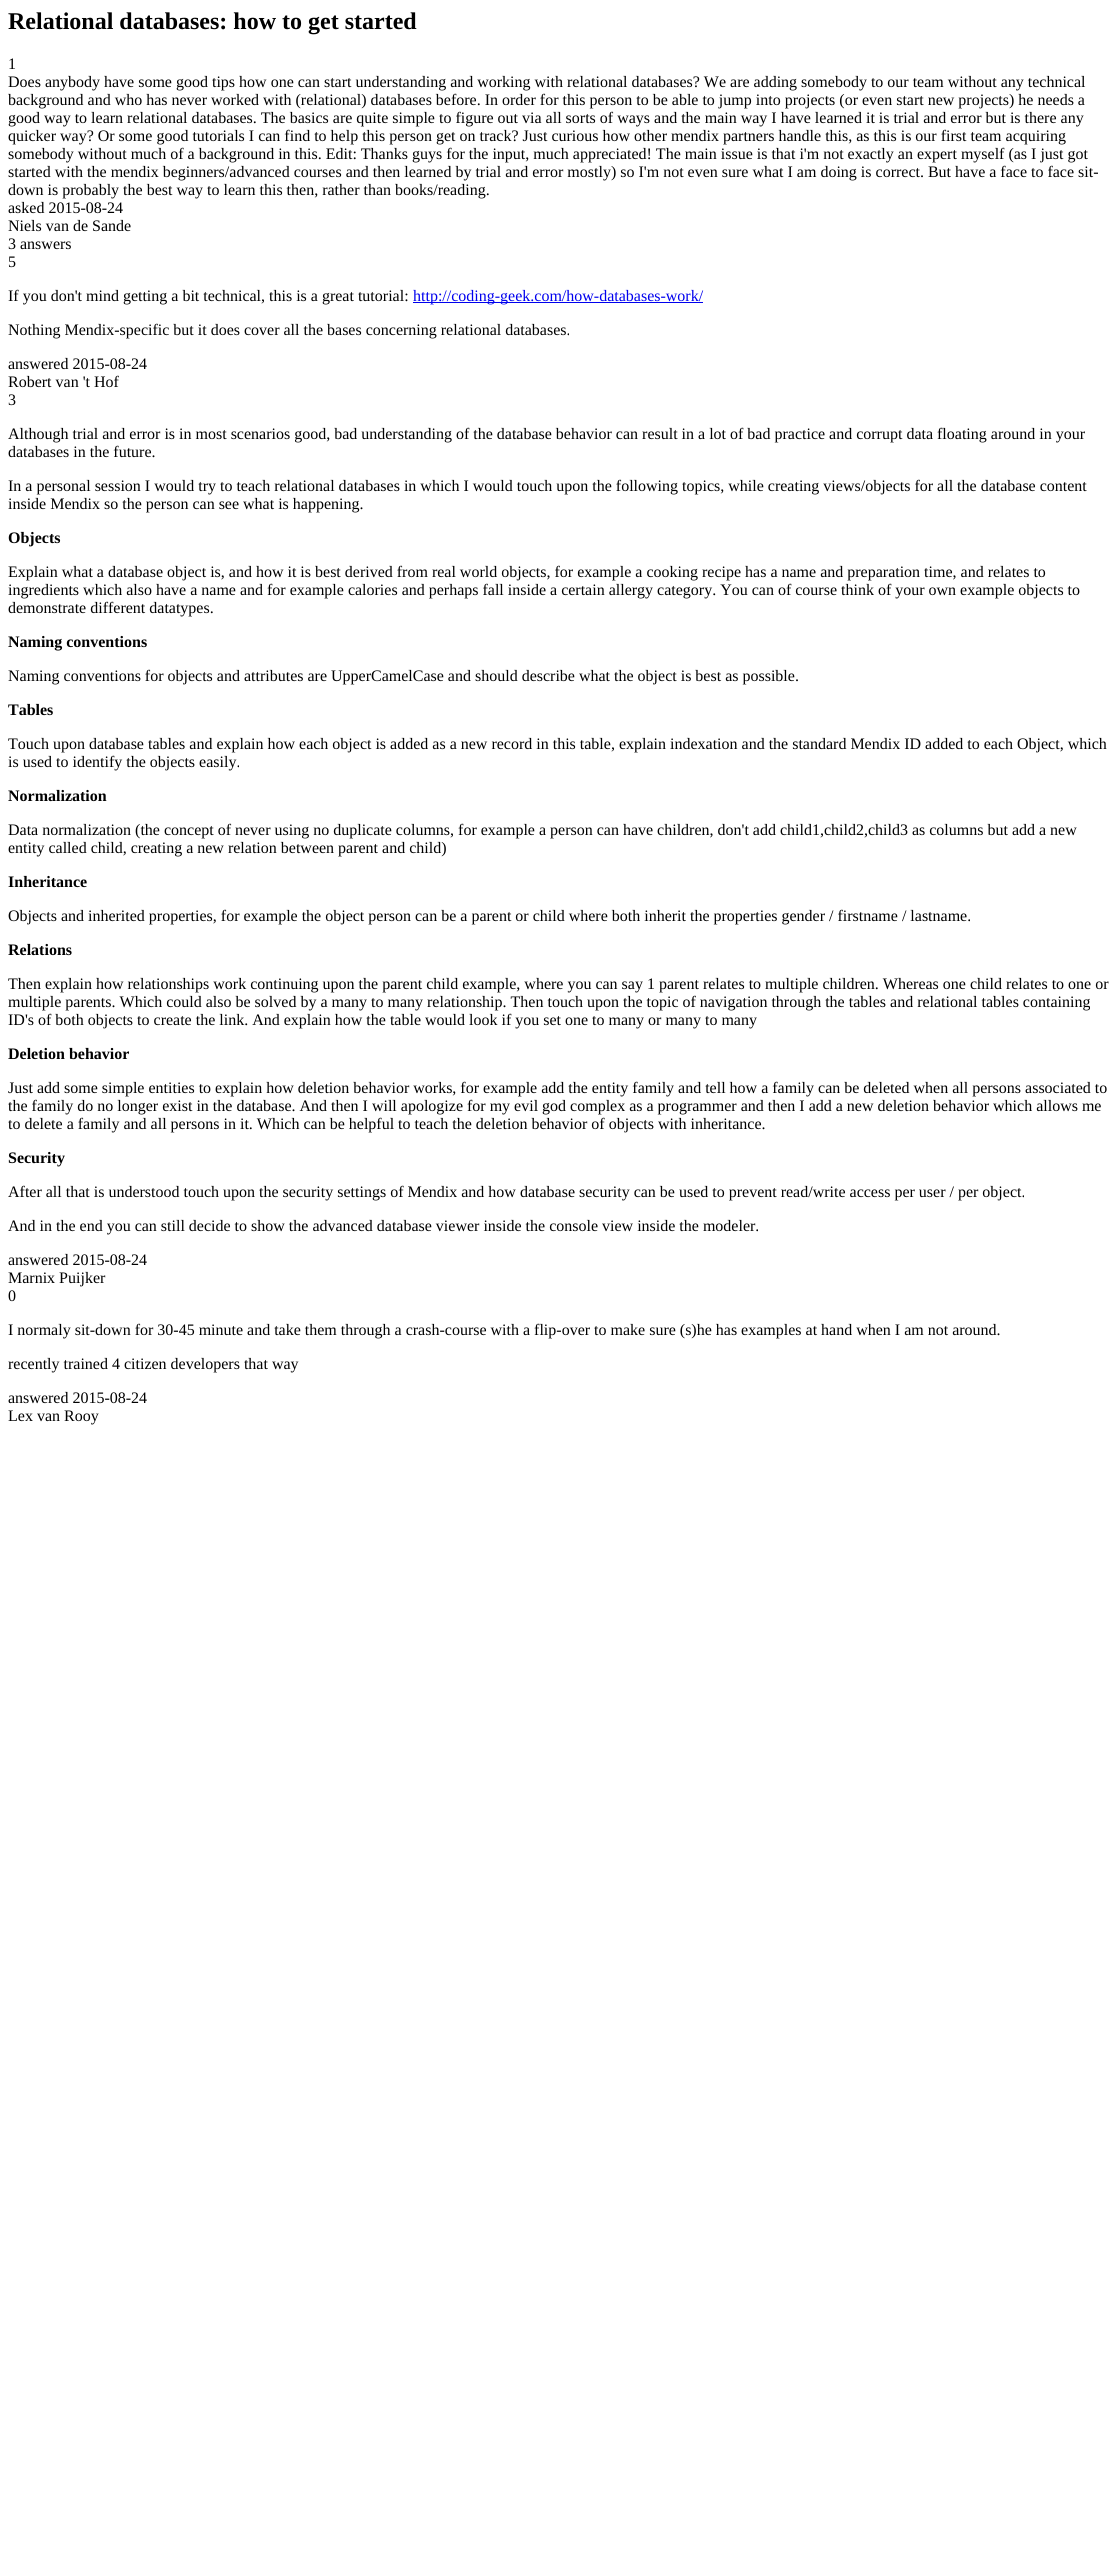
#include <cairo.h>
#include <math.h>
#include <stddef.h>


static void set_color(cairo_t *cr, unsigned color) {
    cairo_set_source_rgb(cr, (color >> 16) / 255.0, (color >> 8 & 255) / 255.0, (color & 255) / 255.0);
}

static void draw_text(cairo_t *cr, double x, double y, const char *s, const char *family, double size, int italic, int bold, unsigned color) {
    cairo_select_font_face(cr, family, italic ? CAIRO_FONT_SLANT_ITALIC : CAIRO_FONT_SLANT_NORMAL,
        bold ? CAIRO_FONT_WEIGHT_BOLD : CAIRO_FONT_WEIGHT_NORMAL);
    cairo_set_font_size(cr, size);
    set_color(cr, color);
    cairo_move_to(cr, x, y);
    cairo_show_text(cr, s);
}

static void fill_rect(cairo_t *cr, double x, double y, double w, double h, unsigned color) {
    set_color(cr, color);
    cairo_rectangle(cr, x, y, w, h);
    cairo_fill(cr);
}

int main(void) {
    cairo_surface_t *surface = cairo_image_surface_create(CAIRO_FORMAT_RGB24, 1120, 2569);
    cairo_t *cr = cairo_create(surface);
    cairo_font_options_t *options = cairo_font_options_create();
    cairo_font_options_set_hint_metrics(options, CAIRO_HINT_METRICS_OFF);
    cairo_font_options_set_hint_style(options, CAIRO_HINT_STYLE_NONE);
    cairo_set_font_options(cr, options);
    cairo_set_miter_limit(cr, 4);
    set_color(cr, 0xFFFFFF);
    cairo_paint(cr);
    draw_text(cr, 8, 29, "Relational databases: how to get started", "Liberation Serif", 24, 0, 1, 0x000000);
    draw_text(cr, 8, 69, "1", "Liberation Serif", 16, 0, 0, 0x000000);
    draw_text(cr, 8, 87, "Does anybody have some good tips how one can start understanding and working with relational databases? We are adding somebody to our team without any technical", "Liberation Serif", 16, 0, 0, 0x000000);
    draw_text(cr, 8, 105, "background and who has never worked with (relational) databases before. In order for this person to be able to jump into projects (or even start new projects) he needs a", "Liberation Serif", 16, 0, 0, 0x000000);
    draw_text(cr, 8, 123, "good way to learn relational databases. The basics are quite simple to figure out via all sorts of ways and the main way I have learned it is trial and error but is there any", "Liberation Serif", 16, 0, 0, 0x000000);
    draw_text(cr, 8, 141, "quicker way? Or some good tutorials I can find to help this person get on track? Just curious how other mendix partners handle this, as this is our first team acquiring", "Liberation Serif", 16, 0, 0, 0x000000);
    draw_text(cr, 8, 159, "somebody without much of a background in this. Edit: Thanks guys for the input, much appreciated! The main issue is that i'm not exactly an expert myself (as I just got", "Liberation Serif", 16, 0, 0, 0x000000);
    draw_text(cr, 8, 177, "started with the mendix beginners/advanced courses and then learned by trial and error mostly) so I'm not even sure what I am doing is correct. But have a face to face sit-", "Liberation Serif", 16, 0, 0, 0x000000);
    draw_text(cr, 8, 195, "down is probably the best way to learn this then, rather than books/reading.", "Liberation Serif", 16, 0, 0, 0x000000);
    draw_text(cr, 8, 213, "asked 2015-08-24", "Liberation Serif", 16, 0, 0, 0x000000);
    draw_text(cr, 8, 231, "Niels van de Sande", "Liberation Serif", 16, 0, 0, 0x000000);
    draw_text(cr, 8, 249, "3 answers", "Liberation Serif", 16, 0, 0, 0x000000);
    draw_text(cr, 8, 267, "5", "Liberation Serif", 16, 0, 0, 0x000000);
    draw_text(cr, 8, 301, "If you don't mind getting a bit technical, this is a great tutorial:", "Liberation Serif", 16, 0, 0, 0x000000);
    fill_rect(cr, 413, 302, 290, 1, 0x0000EE);
    draw_text(cr, 413, 301, "http://coding-geek.com/how-databases-work/", "Liberation Serif", 16, 0, 0, 0x0000EE);
    draw_text(cr, 8, 335, "Nothing Mendix-specific but it does cover all the bases concerning relational databases.", "Liberation Serif", 16, 0, 0, 0x000000);
    draw_text(cr, 8, 369, "answered 2015-08-24", "Liberation Serif", 16, 0, 0, 0x000000);
    draw_text(cr, 8, 387, "Robert van 't Hof", "Liberation Serif", 16, 0, 0, 0x000000);
    draw_text(cr, 8, 405, "3", "Liberation Serif", 16, 0, 0, 0x000000);
    draw_text(cr, 8, 439, "Although trial and error is in most scenarios good, bad understanding of the database behavior can result in a lot of bad practice and corrupt data floating around in your", "Liberation Serif", 16, 0, 0, 0x000000);
    draw_text(cr, 8, 457, "databases in the future.", "Liberation Serif", 16, 0, 0, 0x000000);
    draw_text(cr, 8, 491, "In a personal session I would try to teach relational databases in which I would touch upon the following topics, while creating views/objects for all the database content", "Liberation Serif", 16, 0, 0, 0x000000);
    draw_text(cr, 8, 509, "inside Mendix so the person can see what is happening.", "Liberation Serif", 16, 0, 0, 0x000000);
    draw_text(cr, 8, 543, "Objects", "Liberation Serif", 16, 0, 1, 0x000000);
    draw_text(cr, 8, 577, "Explain what a database object is, and how it is best derived from real world objects, for example a cooking recipe has a name and preparation time, and relates to", "Liberation Serif", 16, 0, 0, 0x000000);
    draw_text(cr, 8, 595, "ingredients which also have a name and for example calories and perhaps fall inside a certain allergy category. You can of course think of your own example objects to", "Liberation Serif", 16, 0, 0, 0x000000);
    draw_text(cr, 8, 613, "demonstrate different datatypes.", "Liberation Serif", 16, 0, 0, 0x000000);
    draw_text(cr, 8, 647, "Naming conventions", "Liberation Serif", 16, 0, 1, 0x000000);
    draw_text(cr, 8, 681, "Naming conventions for objects and attributes are UpperCamelCase and should describe what the object is best as possible.", "Liberation Serif", 16, 0, 0, 0x000000);
    draw_text(cr, 8, 715, "Tables", "Liberation Serif", 16, 0, 1, 0x000000);
    draw_text(cr, 8, 749, "Touch upon database tables and explain how each object is added as a new record in this table, explain indexation and the standard Mendix ID added to each Object, which", "Liberation Serif", 16, 0, 0, 0x000000);
    draw_text(cr, 8, 767, "is used to identify the objects easily.", "Liberation Serif", 16, 0, 0, 0x000000);
    draw_text(cr, 8, 801, "Normalization", "Liberation Serif", 16, 0, 1, 0x000000);
    draw_text(cr, 8, 835, "Data normalization (the concept of never using no duplicate columns, for example a person can have children, don't add child1,child2,child3 as columns but add a new", "Liberation Serif", 16, 0, 0, 0x000000);
    draw_text(cr, 8, 853, "entity called child, creating a new relation between parent and child)", "Liberation Serif", 16, 0, 0, 0x000000);
    draw_text(cr, 8, 887, "Inheritance", "Liberation Serif", 16, 0, 1, 0x000000);
    draw_text(cr, 8, 921, "Objects and inherited properties, for example the object person can be a parent or child where both inherit the properties gender / firstname / lastname.", "Liberation Serif", 16, 0, 0, 0x000000);
    draw_text(cr, 8, 955, "Relations", "Liberation Serif", 16, 0, 1, 0x000000);
    draw_text(cr, 8, 989, "Then explain how relationships work continuing upon the parent child example, where you can say 1 parent relates to multiple children. Whereas one child relates to one or", "Liberation Serif", 16, 0, 0, 0x000000);
    draw_text(cr, 8, 1007, "multiple parents. Which could also be solved by a many to many relationship. Then touch upon the topic of navigation through the tables and relational tables containing", "Liberation Serif", 16, 0, 0, 0x000000);
    draw_text(cr, 8, 1025, "ID's of both objects to create the link. And explain how the table would look if you set one to many or many to many", "Liberation Serif", 16, 0, 0, 0x000000);
    draw_text(cr, 8, 1059, "Deletion behavior", "Liberation Serif", 16, 0, 1, 0x000000);
    draw_text(cr, 8, 1093, "Just add some simple entities to explain how deletion behavior works, for example add the entity family and tell how a family can be deleted when all persons associated to", "Liberation Serif", 16, 0, 0, 0x000000);
    draw_text(cr, 8, 1111, "the family do no longer exist in the database. And then I will apologize for my evil god complex as a programmer and then I add a new deletion behavior which allows me", "Liberation Serif", 16, 0, 0, 0x000000);
    draw_text(cr, 8, 1129, "to delete a family and all persons in it. Which can be helpful to teach the deletion behavior of objects with inheritance.", "Liberation Serif", 16, 0, 0, 0x000000);
    draw_text(cr, 8, 1163, "Security", "Liberation Serif", 16, 0, 1, 0x000000);
    draw_text(cr, 8, 1197, "After all that is understood touch upon the security settings of Mendix and how database security can be used to prevent read/write access per user / per object.", "Liberation Serif", 16, 0, 0, 0x000000);
    draw_text(cr, 8, 1231, "And in the end you can still decide to show the advanced database viewer inside the console view inside the modeler.", "Liberation Serif", 16, 0, 0, 0x000000);
    draw_text(cr, 8, 1265, "answered 2015-08-24", "Liberation Serif", 16, 0, 0, 0x000000);
    draw_text(cr, 8, 1283, "Marnix Puijker", "Liberation Serif", 16, 0, 0, 0x000000);
    draw_text(cr, 8, 1301, "0", "Liberation Serif", 16, 0, 0, 0x000000);
    draw_text(cr, 8, 1335, "I normaly sit-down for 30-45 minute and take them through a crash-course with a flip-over to make sure (s)he has examples at hand when I am not around.", "Liberation Serif", 16, 0, 0, 0x000000);
    draw_text(cr, 8, 1369, "recently trained 4 citizen developers that way", "Liberation Serif", 16, 0, 0, 0x000000);
    draw_text(cr, 8, 1403, "answered 2015-08-24", "Liberation Serif", 16, 0, 0, 0x000000);
    draw_text(cr, 8, 1421, "Lex van Rooy", "Liberation Serif", 16, 0, 0, 0x000000);
    cairo_surface_write_to_png(surface, "output.png");
    cairo_font_options_destroy(options);
    cairo_destroy(cr);
    cairo_surface_destroy(surface);
    return 0;
}
